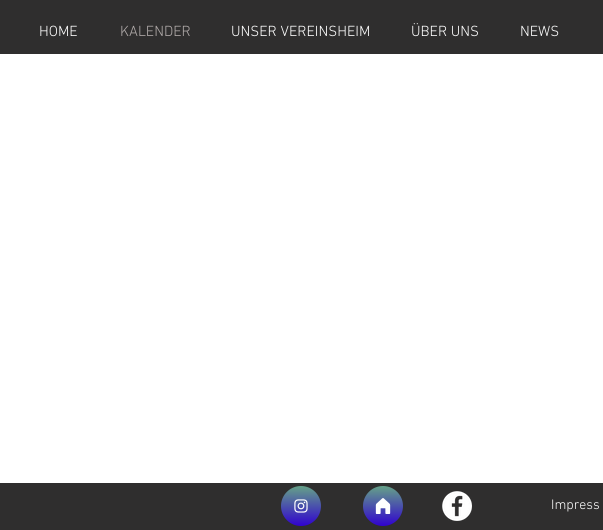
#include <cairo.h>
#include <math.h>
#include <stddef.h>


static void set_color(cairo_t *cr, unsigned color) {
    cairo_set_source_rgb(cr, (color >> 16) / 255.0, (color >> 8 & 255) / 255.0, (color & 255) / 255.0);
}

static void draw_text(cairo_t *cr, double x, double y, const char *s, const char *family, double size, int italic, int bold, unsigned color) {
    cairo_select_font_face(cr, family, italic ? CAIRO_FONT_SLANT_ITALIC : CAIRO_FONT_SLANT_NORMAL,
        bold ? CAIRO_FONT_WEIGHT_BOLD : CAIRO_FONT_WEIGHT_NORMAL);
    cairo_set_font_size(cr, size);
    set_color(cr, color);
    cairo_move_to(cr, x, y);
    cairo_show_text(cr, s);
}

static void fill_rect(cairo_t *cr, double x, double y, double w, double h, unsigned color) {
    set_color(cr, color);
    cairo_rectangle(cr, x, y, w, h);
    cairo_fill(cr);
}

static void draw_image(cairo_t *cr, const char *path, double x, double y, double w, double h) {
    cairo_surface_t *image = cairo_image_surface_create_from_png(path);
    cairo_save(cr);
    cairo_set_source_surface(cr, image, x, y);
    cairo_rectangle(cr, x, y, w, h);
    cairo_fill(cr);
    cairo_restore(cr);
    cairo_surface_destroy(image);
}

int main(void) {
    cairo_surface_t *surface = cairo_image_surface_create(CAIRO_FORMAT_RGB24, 603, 530);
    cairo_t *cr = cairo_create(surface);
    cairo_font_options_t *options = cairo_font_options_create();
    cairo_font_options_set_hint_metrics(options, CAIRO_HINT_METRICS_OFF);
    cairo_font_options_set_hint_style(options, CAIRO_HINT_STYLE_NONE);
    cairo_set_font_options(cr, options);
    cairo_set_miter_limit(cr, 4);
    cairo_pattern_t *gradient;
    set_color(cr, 0xFFFFFF);
    cairo_paint(cr);
    fill_rect(cr, 0, 0, 603, 54, 0x2F2E2E);
    draw_text(cr, 39, 36, "HOME", "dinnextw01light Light", 15, 0, 0, 0xFFFFFF);
    draw_text(cr, 120, 36, "KALENDER", "dinnextw01light Light", 15, 0, 0, 0xB0AAA9);
    draw_text(cr, 231, 36, "UNSER VEREINSHEIM", "dinnextw01light Light", 15, 0, 0, 0xFFFFFF);
    draw_text(cr, 411, 36, "ÜBER UNS", "dinnextw01light Light", 15, 0, 0, 0xFFFFFF);
    draw_text(cr, 520, 36, "NEWS", "dinnextw01light Light", 15, 0, 0, 0xFFFFFF);
    fill_rect(cr, 0, 483, 603, 47, 0x2F2E2E);
    gradient = cairo_pattern_create_linear(301, 486, 301, 526);
    cairo_pattern_add_color_stop_rgba(gradient, 0, 0.396, 0.635, 0.533, 1);
    cairo_pattern_add_color_stop_rgba(gradient, 1, 0.188, 0.008, 0.812, 1);
    cairo_set_source(cr, gradient);
    cairo_pattern_destroy(gradient);
    cairo_new_path(cr);
    cairo_arc(cr, 301, 506, 20, 0, 2 * M_PI);
    cairo_fill(cr);
    draw_image(cr, "assets/img1.png", 294, 499, 14, 14);
    gradient = cairo_pattern_create_linear(383, 486, 383, 526);
    cairo_pattern_add_color_stop_rgba(gradient, 0, 0.396, 0.635, 0.533, 1);
    cairo_pattern_add_color_stop_rgba(gradient, 1, 0.188, 0.008, 0.812, 1);
    cairo_set_source(cr, gradient);
    cairo_pattern_destroy(gradient);
    cairo_arc(cr, 383, 506, 20, 0, 2 * M_PI);
    cairo_fill(cr);
    draw_image(cr, "assets/img2.png", 375, 498, 16, 16);
    draw_image(cr, "assets/img3.png", 442, 491, 30, 30);
    draw_text(cr, 551, 509, "Impress", "dinnextw01light Light", 14, 0, 0, 0xFFFFFF);
    cairo_surface_write_to_png(surface, "output.png");
    cairo_font_options_destroy(options);
    cairo_destroy(cr);
    cairo_surface_destroy(surface);
    return 0;
}
